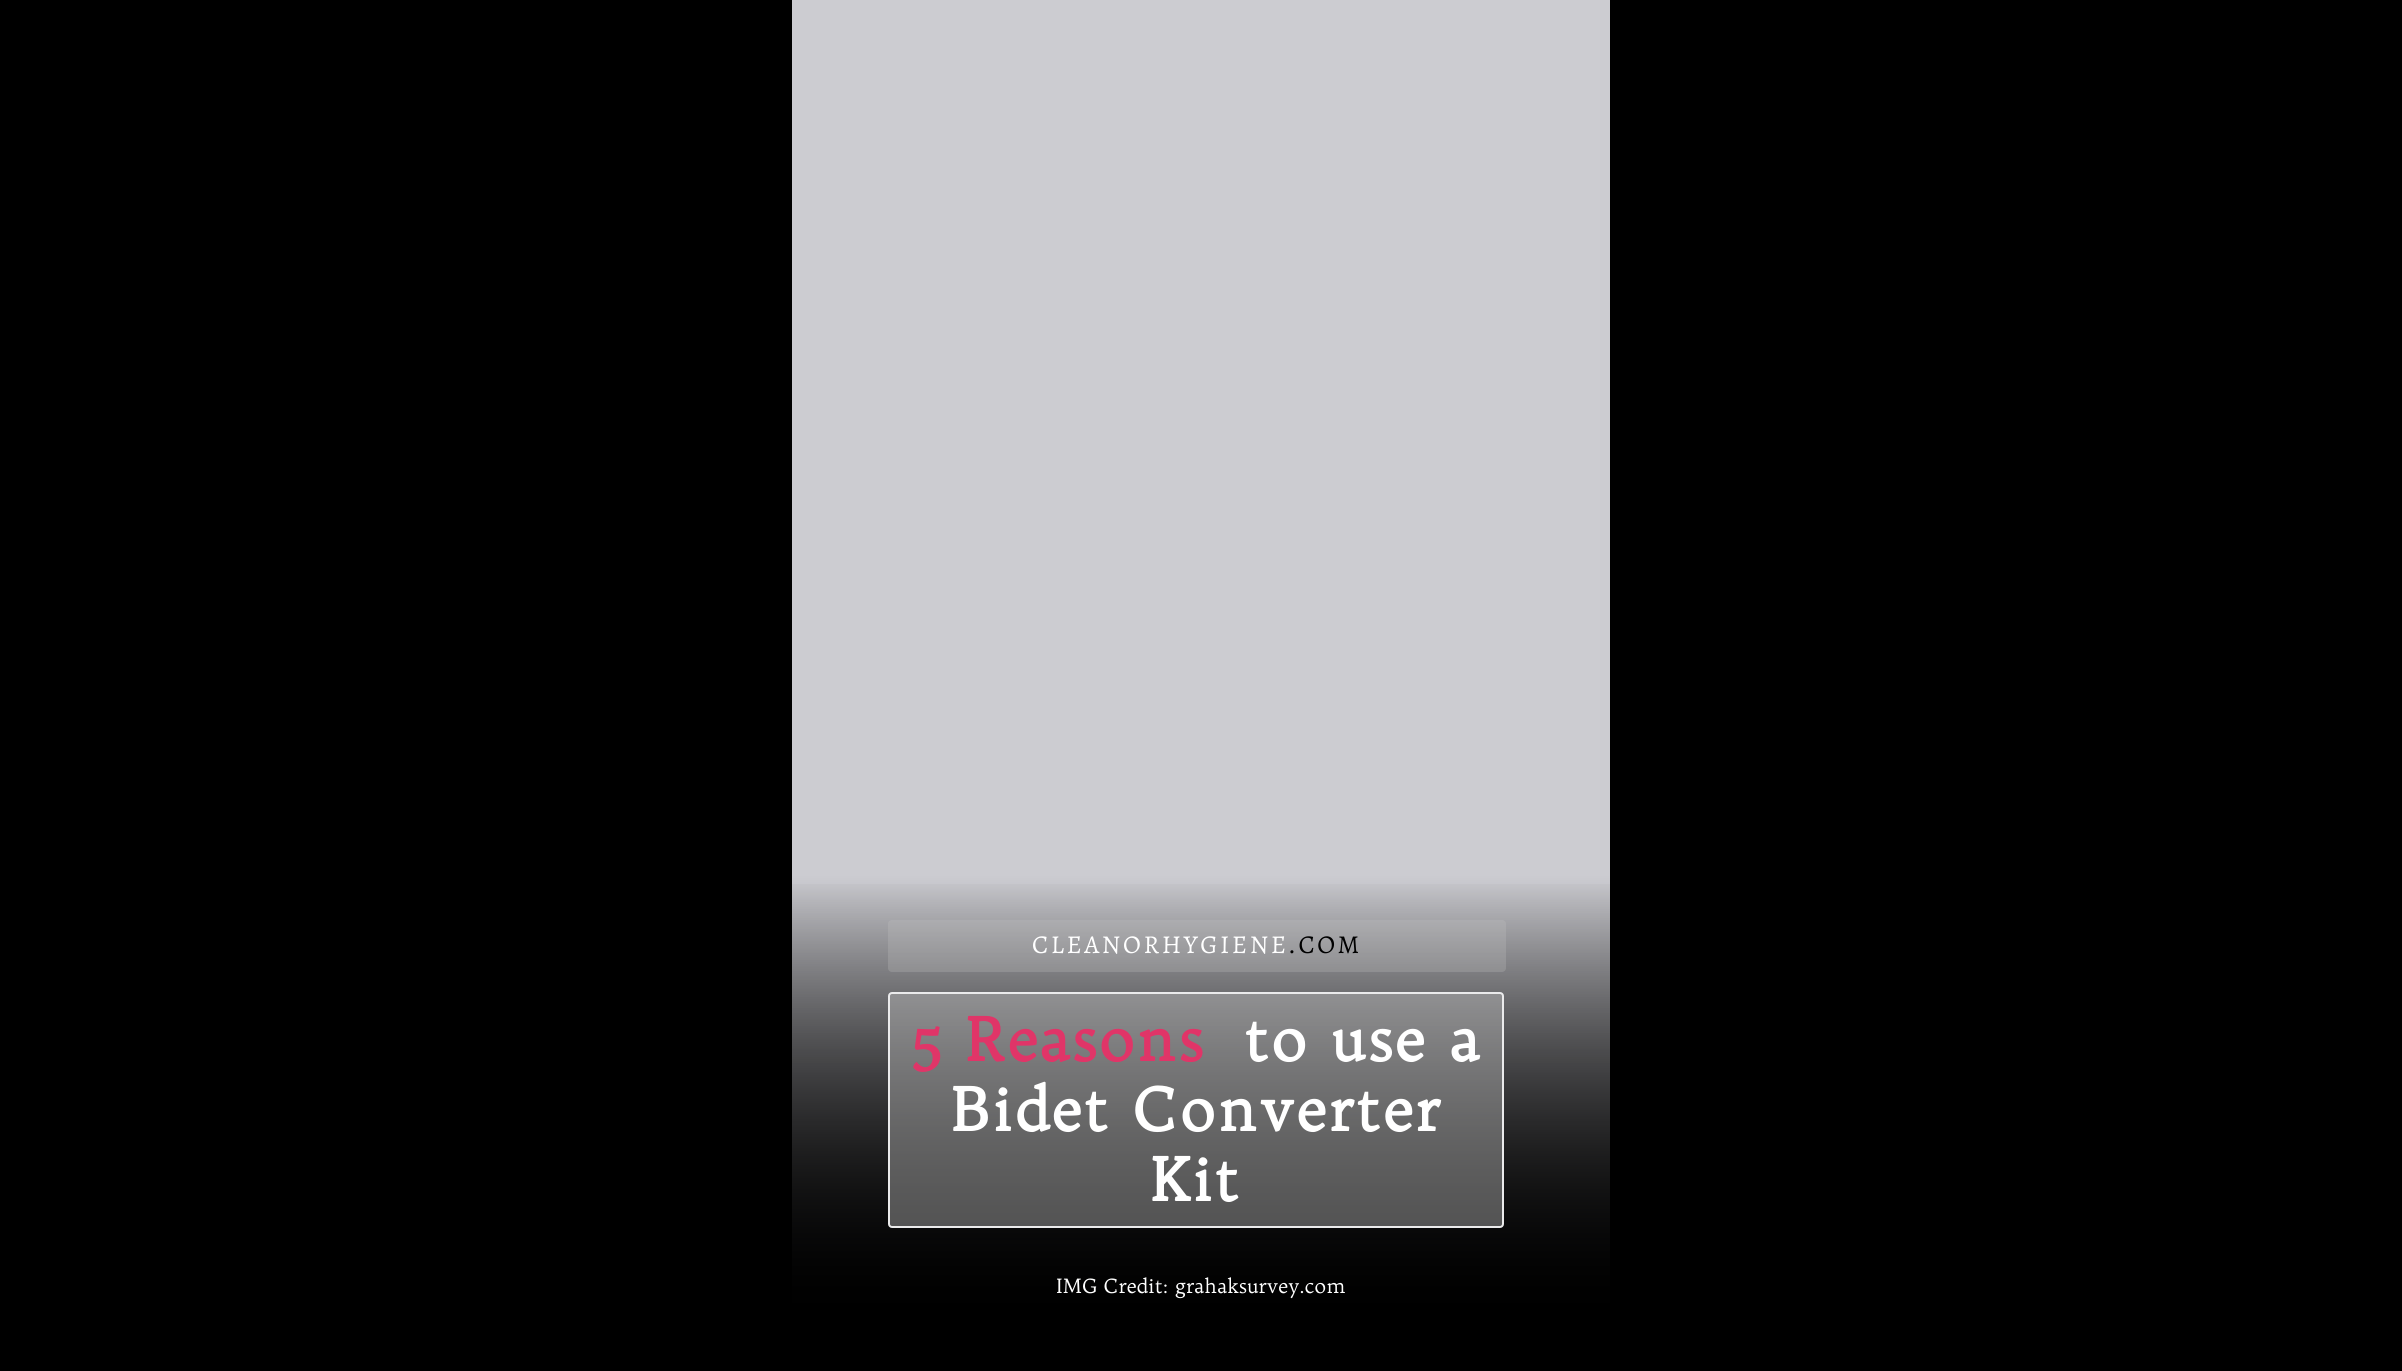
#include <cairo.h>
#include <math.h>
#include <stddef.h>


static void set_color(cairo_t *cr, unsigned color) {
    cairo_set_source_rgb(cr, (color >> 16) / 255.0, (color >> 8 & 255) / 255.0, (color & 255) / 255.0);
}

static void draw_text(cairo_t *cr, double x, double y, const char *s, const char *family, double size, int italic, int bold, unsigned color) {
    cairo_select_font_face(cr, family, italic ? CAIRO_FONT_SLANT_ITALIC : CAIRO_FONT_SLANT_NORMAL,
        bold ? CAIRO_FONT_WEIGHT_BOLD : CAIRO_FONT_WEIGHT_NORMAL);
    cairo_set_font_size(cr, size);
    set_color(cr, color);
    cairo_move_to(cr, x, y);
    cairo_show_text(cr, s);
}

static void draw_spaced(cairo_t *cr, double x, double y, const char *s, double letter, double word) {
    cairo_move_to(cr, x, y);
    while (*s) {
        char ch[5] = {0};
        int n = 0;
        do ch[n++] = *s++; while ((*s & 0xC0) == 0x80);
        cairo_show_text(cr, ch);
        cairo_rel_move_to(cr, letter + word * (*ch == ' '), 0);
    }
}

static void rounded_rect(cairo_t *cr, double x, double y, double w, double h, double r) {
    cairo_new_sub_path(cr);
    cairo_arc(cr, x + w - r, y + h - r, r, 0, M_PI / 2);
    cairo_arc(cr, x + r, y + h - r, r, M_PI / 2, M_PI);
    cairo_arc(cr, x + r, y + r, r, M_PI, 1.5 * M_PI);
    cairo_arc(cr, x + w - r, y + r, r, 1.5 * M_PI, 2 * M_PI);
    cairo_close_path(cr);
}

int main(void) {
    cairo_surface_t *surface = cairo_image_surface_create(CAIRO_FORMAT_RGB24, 2402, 1371);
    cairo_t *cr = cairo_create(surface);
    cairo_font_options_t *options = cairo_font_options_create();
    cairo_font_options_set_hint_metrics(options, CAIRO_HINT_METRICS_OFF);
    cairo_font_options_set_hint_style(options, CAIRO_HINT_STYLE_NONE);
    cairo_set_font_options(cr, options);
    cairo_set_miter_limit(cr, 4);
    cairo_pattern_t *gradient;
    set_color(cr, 0x000000);
    cairo_paint(cr);
    gradient = cairo_pattern_create_linear(1201, -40, 1201, 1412);
    cairo_pattern_add_color_stop_rgba(gradient, 0.63, 0.8, 0.8, 0.82, 1);
    cairo_pattern_add_color_stop_rgba(gradient, 0.94, 0, 0, 0, 1);
    cairo_set_source(cr, gradient);
    cairo_pattern_destroy(gradient);
    cairo_rectangle(cr, 792, 0, 818, 1319);
    cairo_fill(cr);
    gradient = cairo_pattern_create_linear(1201, -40, 1201, 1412);
    cairo_pattern_add_color_stop_rgba(gradient, 0.63, 0, 0, 0, 0);
    cairo_pattern_add_color_stop_rgba(gradient, 0.94, 0, 0, 0, 1);
    cairo_set_source(cr, gradient);
    cairo_pattern_destroy(gradient);
    cairo_rectangle(cr, 792, 884, 818, 435);
    cairo_fill(cr);
    cairo_set_source_rgba(cr, 0.769, 0.769, 0.769, 0.25);
    rounded_rect(cr, 888, 920, 618, 52, 4);
    cairo_fill(cr);
    cairo_select_font_face(cr, "Alegreya", CAIRO_FONT_SLANT_NORMAL, CAIRO_FONT_WEIGHT_NORMAL);
    cairo_set_font_size(cr, 25.75);
    set_color(cr, 0xFFFFFF);
    draw_spaced(cr, 1032, 953, "CLEANORHYGIENE", 2.6, 0);
    set_color(cr, 0x000000);
    draw_spaced(cr, 1288, 953, ".COM", 2.6, 0);
    cairo_set_source_rgba(cr, 0.769, 0.769, 0.769, 0.4);
    rounded_rect(cr, 889, 993, 614, 234, 3);
    cairo_fill_preserve(cr);
    set_color(cr, 0xEBEBEC);
    cairo_stroke(cr);
    cairo_select_font_face(cr, "Trykker", CAIRO_FONT_SLANT_NORMAL, CAIRO_FONT_WEIGHT_BOLD);
    cairo_set_font_size(cr, 59.5);
    set_color(cr, 0xE03568);
    draw_spaced(cr, 911, 1061, "5 Reasons", 2.4, 0);
    set_color(cr, 0xFFFFFF);
    draw_spaced(cr, 1244, 1061, "to use a", 2.4, 0);
    draw_spaced(cr, 950, 1131, "Bidet Converter", 2.4, 0);
    draw_spaced(cr, 1150, 1201, "Kit", 2.4, 0);
    draw_text(cr, 1056, 1293, "IMG Credit: grahaksurvey.com", "Trykker", 19.75, 0, 0, 0xFFFFFF);
    cairo_surface_write_to_png(surface, "output.png");
    cairo_font_options_destroy(options);
    cairo_destroy(cr);
    cairo_surface_destroy(surface);
    return 0;
}
